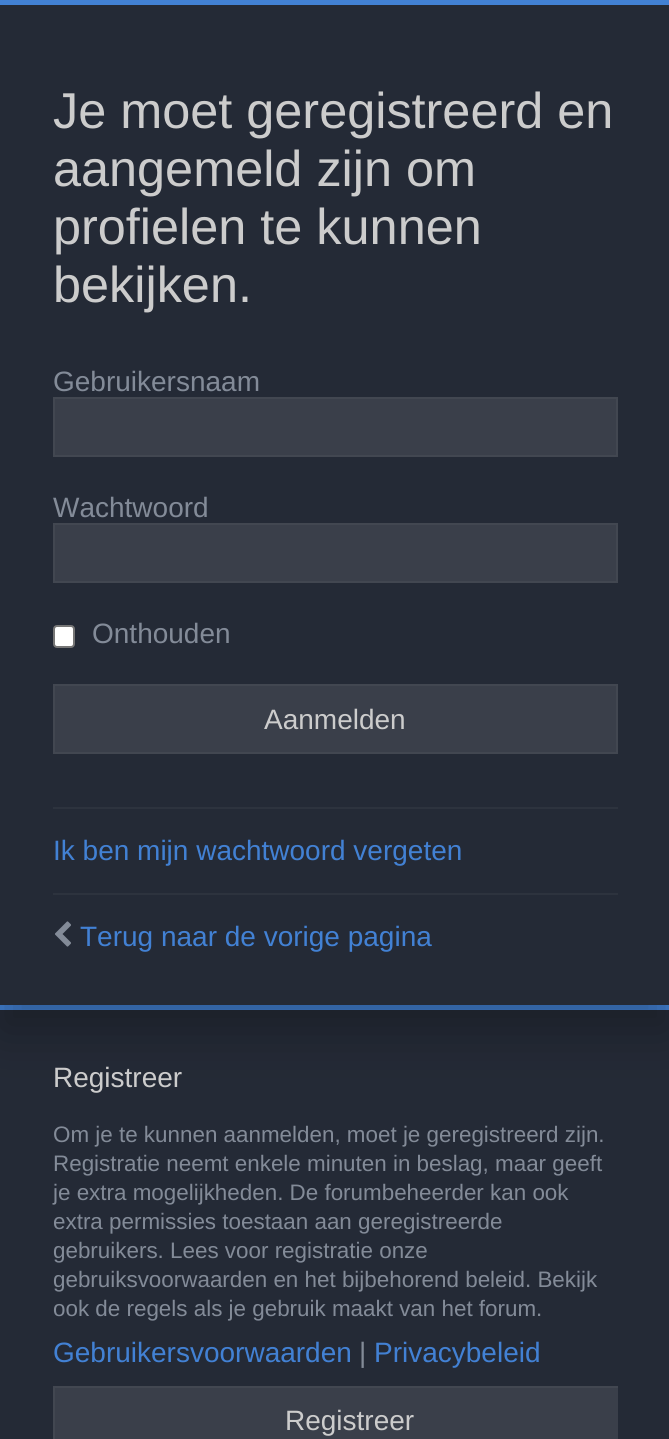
#include <cairo.h>
#include <math.h>
#include <stddef.h>


static void set_color(cairo_t *cr, unsigned color) {
    cairo_set_source_rgb(cr, (color >> 16) / 255.0, (color >> 8 & 255) / 255.0, (color & 255) / 255.0);
}

static void draw_text(cairo_t *cr, double x, double y, const char *s, const char *family, double size, int italic, int bold, unsigned color) {
    cairo_select_font_face(cr, family, italic ? CAIRO_FONT_SLANT_ITALIC : CAIRO_FONT_SLANT_NORMAL,
        bold ? CAIRO_FONT_WEIGHT_BOLD : CAIRO_FONT_WEIGHT_NORMAL);
    cairo_set_font_size(cr, size);
    set_color(cr, color);
    cairo_move_to(cr, x, y);
    cairo_show_text(cr, s);
}

static void fill_rect(cairo_t *cr, double x, double y, double w, double h, unsigned color) {
    set_color(cr, color);
    cairo_rectangle(cr, x, y, w, h);
    cairo_fill(cr);
}

static void rounded_rect(cairo_t *cr, double x, double y, double w, double h, double r) {
    cairo_new_sub_path(cr);
    cairo_arc(cr, x + w - r, y + h - r, r, 0, M_PI / 2);
    cairo_arc(cr, x + r, y + h - r, r, M_PI / 2, M_PI);
    cairo_arc(cr, x + r, y + r, r, M_PI, 1.5 * M_PI);
    cairo_arc(cr, x + w - r, y + r, r, 1.5 * M_PI, 2 * M_PI);
    cairo_close_path(cr);
}

static void draw_shadow(cairo_t *cr, double x, double y, double w, double h, double r, double blur, double alpha) {
    cairo_push_group_with_content(cr, CAIRO_CONTENT_ALPHA);
    cairo_set_operator(cr, CAIRO_OPERATOR_SOURCE);
    for (int i = 15; i >= -15 && fmin(w, h) + blur * i / 3 > 0; i -= 2) {
        double e = blur * i / 6;
        cairo_set_source_rgba(cr, 0, 0, 0, alpha * erfc((i - 1) / 8.5) / 2);
        rounded_rect(cr, x - e, y - e, w + 2 * e, h + 2 * e, fmax(0, fmin(r + e + blur * .6, fmin(w, h) / 2 + e)));
        cairo_fill(cr);
    }
    cairo_pattern_t *soft = cairo_pop_group(cr);
    cairo_mask(cr, soft);
    cairo_pattern_destroy(soft);
}

static void draw_image(cairo_t *cr, const char *path, double x, double y, double w, double h) {
    cairo_surface_t *image = cairo_image_surface_create_from_png(path);
    cairo_save(cr);
    cairo_set_source_surface(cr, image, x, y);
    cairo_rectangle(cr, x, y, w, h);
    cairo_fill(cr);
    cairo_restore(cr);
    cairo_surface_destroy(image);
}

int main(void) {
    cairo_surface_t *surface = cairo_image_surface_create(CAIRO_FORMAT_RGB24, 669, 1439);
    cairo_t *cr = cairo_create(surface);
    cairo_font_options_t *options = cairo_font_options_create();
    cairo_font_options_set_hint_metrics(options, CAIRO_HINT_METRICS_OFF);
    cairo_font_options_set_hint_style(options, CAIRO_HINT_STYLE_NONE);
    cairo_set_font_options(cr, options);
    cairo_set_miter_limit(cr, 4);
    set_color(cr, 0x242A36);
    cairo_paint(cr);
    fill_rect(cr, 0, 1005, 669, 5, 0x4281D4);
    set_color(cr, 0x000000);
    draw_shadow(cr, 0, 26, 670, 1005, 0, 26, 0.27);
    fill_rect(cr, 0, 5, 669, 1000, 0x242A36);
    fill_rect(cr, 0, 0, 669, 5, 0x4281D4);
    draw_text(cr, 53, 128, "Je moet geregistreerd en", "Liberation Sans", 50.4, 0, 0, 0xCCCCCC);
    draw_text(cr, 53, 186, "aangemeld zijn om", "Liberation Sans", 50.4, 0, 0, 0xCCCCCC);
    draw_text(cr, 53, 244, "profielen te kunnen", "Liberation Sans", 50.4, 0, 0, 0xCCCCCC);
    draw_text(cr, 53, 302, "bekijken.", "Liberation Sans", 50.4, 0, 0, 0xCCCCCC);
    draw_text(cr, 53, 391, "Gebruikersnaam", "Liberation Sans", 28, 0, 0, 0x838B98);
    set_color(cr, 0x3A3F4A);
    cairo_rectangle(cr, 54, 398, 563, 58);
    cairo_fill_preserve(cr);
    set_color(cr, 0x424751);
    cairo_stroke(cr);
    draw_text(cr, 53, 517, "Wachtwoord", "Liberation Sans", 28, 0, 0, 0x838B98);
    set_color(cr, 0x3A3F4A);
    cairo_rectangle(cr, 54, 524, 563, 58);
    cairo_fill_preserve(cr);
    set_color(cr, 0x424751);
    cairo_stroke(cr);
    set_color(cr, 0xFFFFFF);
    rounded_rect(cr, 54, 626, 20, 21, 3);
    cairo_fill_preserve(cr);
    set_color(cr, 0x767676);
    cairo_stroke(cr);
    draw_text(cr, 92, 643, "Onthouden", "Liberation Sans", 28, 0, 0, 0x838B98);
    set_color(cr, 0x3A3F4A);
    cairo_rectangle(cr, 54, 685, 563, 68);
    cairo_fill_preserve(cr);
    set_color(cr, 0x424751);
    cairo_stroke(cr);
    draw_text(cr, 264, 729, "Aanmelden", "Liberation Sans", 28, 0, 0, 0xCCCCCC);
    fill_rect(cr, 53, 807, 565, 2, 0x2D333E);
    draw_text(cr, 53, 860, "Ik ben mijn wachtwoord vergeten", "Liberation Sans", 28, 0, 0, 0x4281D4);
    fill_rect(cr, 53, 893, 565, 2, 0x2D333E);
    draw_image(cr, "assets/img1.png", 55, 921, 16, 26);
    draw_text(cr, 80, 946, "Terug naar de vorige pagina", "Liberation Sans", 28, 0, 0, 0x4281D4);
    draw_text(cr, 53, 1087, "Registreer", "Liberation Sans", 28, 0, 0, 0xCCCCCC);
    draw_text(cr, 53, 1142, "Om je te kunnen aanmelden, moet je geregistreerd zijn.", "Liberation Sans", 22.4, 0, 0, 0x838B98);
    draw_text(cr, 53, 1171, "Registratie neemt enkele minuten in beslag, maar geeft", "Liberation Sans", 22.4, 0, 0, 0x838B98);
    draw_text(cr, 53, 1200, "je extra mogelijkheden. De forumbeheerder kan ook", "Liberation Sans", 22.4, 0, 0, 0x838B98);
    draw_text(cr, 53, 1229, "extra permissies toestaan aan geregistreerde", "Liberation Sans", 22.4, 0, 0, 0x838B98);
    draw_text(cr, 53, 1258, "gebruikers. Lees voor registratie onze", "Liberation Sans", 22.4, 0, 0, 0x838B98);
    draw_text(cr, 53, 1287, "gebruiksvoorwaarden en het bijbehorend beleid. Bekijk", "Liberation Sans", 22.4, 0, 0, 0x838B98);
    draw_text(cr, 53, 1316, "ook de regels als je gebruik maakt van het forum.", "Liberation Sans", 22.4, 0, 0, 0x838B98);
    draw_text(cr, 53, 1362, "Gebruikersvoorwaarden", "Liberation Sans", 28, 0, 0, 0x4281D4);
    draw_text(cr, 359, 1362, "|", "Liberation Sans", 28, 0, 0, 0x838B98);
    draw_text(cr, 374, 1362, "Privacybeleid", "Liberation Sans", 28, 0, 0, 0x4281D4);
    fill_rect(cr, 55, 1388, 563, 51, 0x3A3F4A);
    cairo_save(cr);
    cairo_rectangle(cr, 53, 1386, 565, 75);
    cairo_clip(cr);
    cairo_rectangle(cr, 54, 1387, 591, 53);
    set_color(cr, 0x424751);
    cairo_stroke(cr);
    cairo_restore(cr);
    draw_text(cr, 285, 1430, "Registreer", "Liberation Sans", 28, 0, 0, 0xCCCCCC);
    cairo_surface_write_to_png(surface, "output.png");
    cairo_font_options_destroy(options);
    cairo_destroy(cr);
    cairo_surface_destroy(surface);
    return 0;
}
